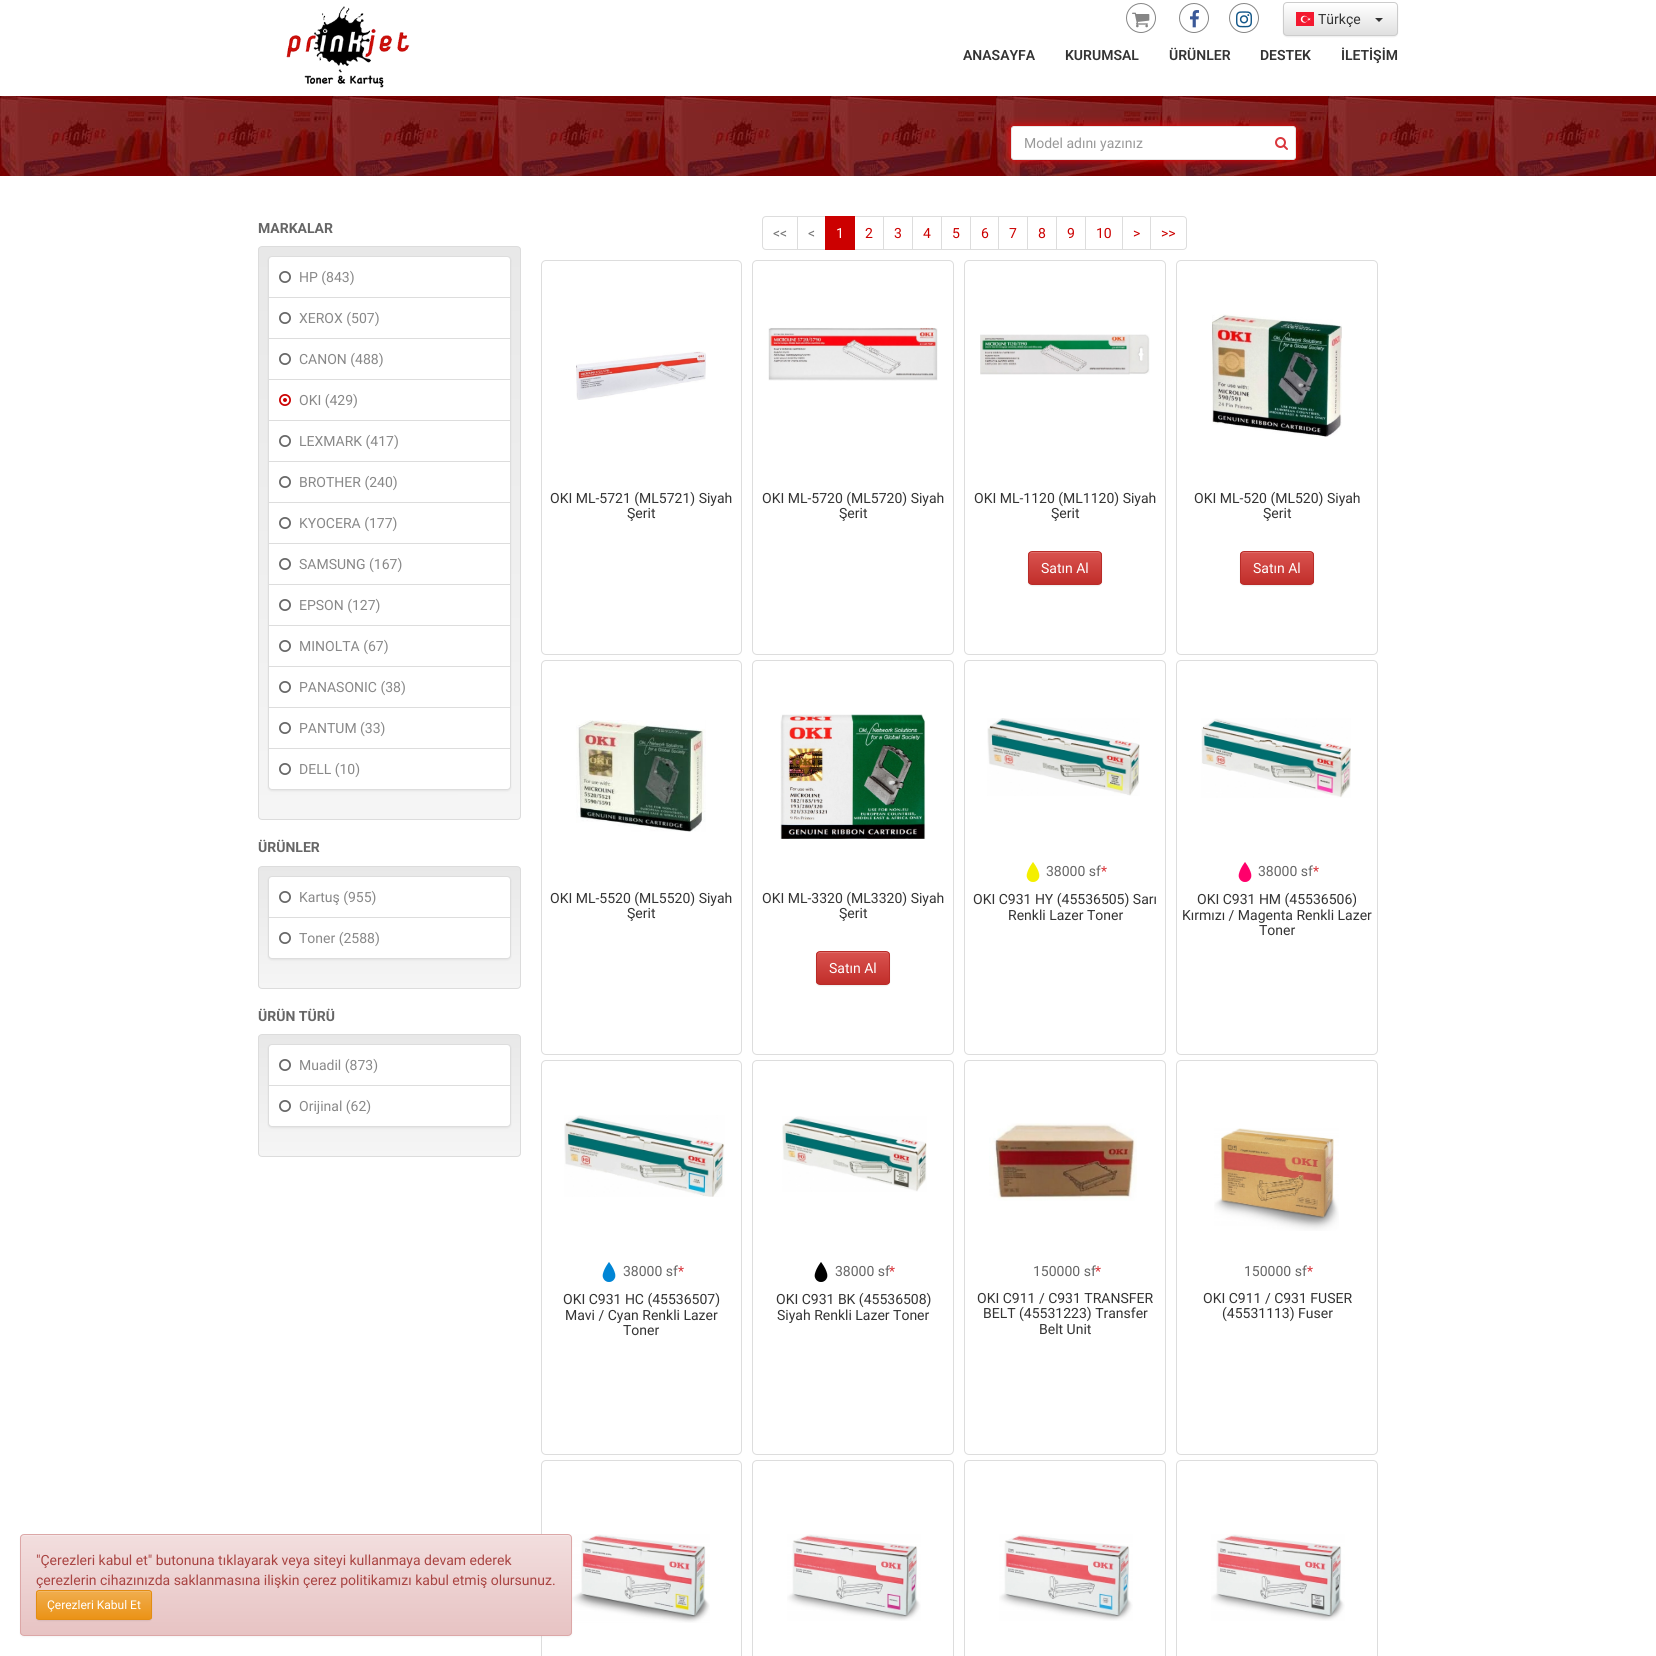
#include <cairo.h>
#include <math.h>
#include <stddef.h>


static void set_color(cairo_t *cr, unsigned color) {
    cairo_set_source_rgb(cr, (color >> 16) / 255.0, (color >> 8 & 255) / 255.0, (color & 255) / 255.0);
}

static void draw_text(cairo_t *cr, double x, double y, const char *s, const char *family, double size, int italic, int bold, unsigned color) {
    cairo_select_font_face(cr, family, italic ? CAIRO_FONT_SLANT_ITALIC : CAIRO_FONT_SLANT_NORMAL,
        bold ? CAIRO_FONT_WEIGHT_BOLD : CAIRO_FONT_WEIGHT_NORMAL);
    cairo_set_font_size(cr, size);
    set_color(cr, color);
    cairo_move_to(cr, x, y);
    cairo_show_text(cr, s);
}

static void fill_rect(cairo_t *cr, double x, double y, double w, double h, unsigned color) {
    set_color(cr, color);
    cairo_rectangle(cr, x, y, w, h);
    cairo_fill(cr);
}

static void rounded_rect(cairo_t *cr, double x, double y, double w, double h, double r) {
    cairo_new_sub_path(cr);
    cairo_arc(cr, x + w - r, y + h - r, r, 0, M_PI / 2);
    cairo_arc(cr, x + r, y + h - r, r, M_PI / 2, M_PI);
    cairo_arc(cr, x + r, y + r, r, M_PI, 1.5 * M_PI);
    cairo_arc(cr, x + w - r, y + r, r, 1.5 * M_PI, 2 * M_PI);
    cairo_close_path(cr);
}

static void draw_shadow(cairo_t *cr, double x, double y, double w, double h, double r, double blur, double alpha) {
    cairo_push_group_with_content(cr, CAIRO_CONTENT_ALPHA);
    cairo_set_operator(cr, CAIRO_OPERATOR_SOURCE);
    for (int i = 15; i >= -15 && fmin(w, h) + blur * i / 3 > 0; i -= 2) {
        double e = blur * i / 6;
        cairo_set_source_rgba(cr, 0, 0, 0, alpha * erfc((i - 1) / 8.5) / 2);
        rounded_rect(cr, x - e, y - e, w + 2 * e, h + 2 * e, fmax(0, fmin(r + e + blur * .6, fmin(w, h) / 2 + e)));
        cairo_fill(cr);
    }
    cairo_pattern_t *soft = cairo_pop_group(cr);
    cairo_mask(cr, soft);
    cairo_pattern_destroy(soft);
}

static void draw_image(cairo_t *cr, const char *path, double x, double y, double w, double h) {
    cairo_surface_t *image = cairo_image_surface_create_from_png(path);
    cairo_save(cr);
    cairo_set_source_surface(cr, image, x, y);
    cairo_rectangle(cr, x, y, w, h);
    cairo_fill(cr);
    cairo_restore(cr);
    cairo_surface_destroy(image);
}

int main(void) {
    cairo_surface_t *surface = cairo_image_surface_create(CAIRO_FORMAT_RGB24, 1656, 1656);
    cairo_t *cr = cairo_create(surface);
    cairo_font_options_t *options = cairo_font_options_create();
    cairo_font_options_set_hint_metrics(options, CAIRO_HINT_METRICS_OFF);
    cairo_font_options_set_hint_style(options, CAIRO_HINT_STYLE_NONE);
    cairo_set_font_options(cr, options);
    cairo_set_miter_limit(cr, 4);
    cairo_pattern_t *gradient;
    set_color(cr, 0xFFFFFF);
    cairo_paint(cr);
    draw_image(cr, "assets/img1.png", 286, 6, 124, 82);
    cairo_arc(cr, 1141, 18, 14.5, 0, 2 * M_PI);
    set_color(cr, 0x868686);
    cairo_set_line_width(cr, 1);
    cairo_stroke(cr);
    draw_image(cr, "assets/img2.png", 1132, 12, 18, 16);
    cairo_arc(cr, 1194, 18, 14.5, 0, 2 * M_PI);
    cairo_stroke(cr);
    draw_image(cr, "assets/img3.png", 1190, 10, 9, 18);
    cairo_arc(cr, 1244, 18, 14.5, 0, 2 * M_PI);
    cairo_stroke(cr);
    draw_image(cr, "assets/img4.png", 1236, 11, 16, 17);
    set_color(cr, 0x000000);
    draw_shadow(cr, 1283, 3, 115, 34, 4, 0.5, 0.07);
    cairo_save(cr);
    rounded_rect(cr, 1283, 2, 115, 34, 4);
    cairo_clip(cr);
    gradient = cairo_pattern_create_linear(1341, 3, 1341, 35);
    cairo_pattern_add_color_stop_rgba(gradient, 0, 1, 1, 1, 1);
    cairo_pattern_add_color_stop_rgba(gradient, 1, 0.878, 0.878, 0.878, 1);
    cairo_set_source(cr, gradient);
    cairo_pattern_destroy(gradient);
    cairo_rectangle(cr, 1283, 3, 115, 32);
    cairo_fill(cr);
    cairo_restore(cr);
    rounded_rect(cr, 1283.5, 2.5, 114, 33, 3.5);
    set_color(cr, 0xCCCCCC);
    cairo_stroke(cr);
    draw_image(cr, "assets/img5.png", 1296, 12, 18, 14);
    draw_text(cr, 1318, 24, "Türkçe", "Roboto", 14, 0, 0, 0x333333);
    cairo_new_path(cr);
    cairo_move_to(cr, 1375, 18);
    cairo_line_to(cr, 1383, 18);
    cairo_line_to(cr, 1379, 22);
    cairo_close_path(cr);
    cairo_fill(cr);
    draw_text(cr, 963, 60, "ANASAYFA", "Roboto SemiBold", 14, 0, 0, 0x333333);
    draw_text(cr, 1065, 60, "KURUMSAL", "Roboto SemiBold", 14, 0, 0, 0x333333);
    draw_text(cr, 1169, 60, "ÜRÜNLER", "Roboto SemiBold", 14, 0, 0, 0x333333);
    draw_text(cr, 1260, 60, "DESTEK", "Roboto SemiBold", 14, 0, 0, 0x333333);
    draw_text(cr, 1341, 60, "İLETİŞİM", "Roboto SemiBold", 14, 0, 0, 0x333333);
    draw_image(cr, "assets/img6.png", 0, 96, 1656, 80);
    set_color(cr, 0xFF0000);
    draw_shadow(cr, 1011, 126, 285, 34, 3, 5, 1);
    set_color(cr, 0xFFFFFF);
    rounded_rect(cr, 1011.5, 126.5, 284, 33, 2.5);
    cairo_fill_preserve(cr);
    set_color(cr, 0xE7E7E7);
    cairo_stroke(cr);
    draw_text(cr, 1024, 148, "Model adını yazınız", "Roboto", 14, 0, 0, 0x999999);
    draw_image(cr, "assets/img7.png", 1275, 137, 13, 13);
    draw_text(cr, 258, 233, "MARKALAR", "Roboto", 14, 0, 1, 0x666666);
    cairo_save(cr);
    rounded_rect(cr, 258, 246, 263, 574, 4);
    cairo_clip(cr);
    gradient = cairo_pattern_create_linear(389, 247, 390, 819);
    cairo_pattern_add_color_stop_rgba(gradient, 0, 0.91, 0.91, 0.91, 1);
    cairo_pattern_add_color_stop_rgba(gradient, 1, 0.961, 0.961, 0.961, 1);
    cairo_set_source(cr, gradient);
    cairo_pattern_destroy(gradient);
    cairo_rectangle(cr, 258, 247, 263, 572);
    cairo_fill(cr);
    cairo_restore(cr);
    rounded_rect(cr, 258.5, 246.5, 262, 573, 3.5);
    set_color(cr, 0xDCDCDC);
    cairo_stroke(cr);
    set_color(cr, 0x000000);
    draw_shadow(cr, 268, 257, 243, 534, 4, 1, 0.07);
    set_color(cr, 0xFFFFFF);
    cairo_new_path(cr);
    cairo_move_to(cr, 272, 256.5);
    cairo_line_to(cr, 507, 256.5);
    cairo_curve_to(cr, 509, 256.5, 510.5, 258, 510.5, 260);
    cairo_line_to(cr, 510.5, 297.5);
    cairo_line_to(cr, 268.5, 297.5);
    cairo_line_to(cr, 268.5, 260);
    cairo_curve_to(cr, 268.5, 258, 270, 256.5, 272, 256.5);
    cairo_close_path(cr);
    cairo_fill_preserve(cr);
    set_color(cr, 0xDDDDDD);
    cairo_stroke(cr);
    draw_image(cr, "assets/img8.png", 279, 271, 12, 12);
    draw_text(cr, 299, 282, "HP (843)", "Roboto", 14, 0, 0, 0x888888);
    set_color(cr, 0xFFFFFF);
    cairo_rectangle(cr, 268.5, 297.5, 242, 41);
    cairo_fill_preserve(cr);
    set_color(cr, 0xDDDDDD);
    cairo_stroke(cr);
    draw_image(cr, "assets/img8.png", 279, 312, 12, 12);
    draw_text(cr, 299, 323, "XEROX (507)", "Roboto", 14, 0, 0, 0x888888);
    fill_rect(cr, 269, 339, 241, 40, 0xFFFFFF);
    draw_image(cr, "assets/img8.png", 279, 353, 12, 12);
    draw_text(cr, 299, 364, "CANON (488)", "Roboto", 14, 0, 0, 0x888888);
    set_color(cr, 0xFFFFFF);
    cairo_rectangle(cr, 268.5, 379.5, 242, 41);
    cairo_fill_preserve(cr);
    set_color(cr, 0xDDDDDD);
    cairo_stroke(cr);
    draw_image(cr, "assets/img9.png", 279, 394, 12, 12);
    draw_text(cr, 299, 405, "OKI (429)", "Roboto", 14, 0, 0, 0x888888);
    set_color(cr, 0xFFFFFF);
    cairo_rectangle(cr, 268.5, 420.5, 242, 41);
    cairo_fill_preserve(cr);
    set_color(cr, 0xDDDDDD);
    cairo_stroke(cr);
    draw_image(cr, "assets/img8.png", 279, 435, 12, 12);
    draw_text(cr, 299, 446, "LEXMARK (417)", "Roboto", 14, 0, 0, 0x888888);
    set_color(cr, 0xFFFFFF);
    cairo_rectangle(cr, 268.5, 461.5, 242, 41);
    cairo_fill_preserve(cr);
    set_color(cr, 0xDDDDDD);
    cairo_stroke(cr);
    draw_image(cr, "assets/img8.png", 279, 476, 12, 12);
    draw_text(cr, 299, 487, "BROTHER (240)", "Roboto", 14, 0, 0, 0x888888);
    set_color(cr, 0xFFFFFF);
    cairo_rectangle(cr, 268.5, 502.5, 242, 41);
    cairo_fill_preserve(cr);
    set_color(cr, 0xDDDDDD);
    cairo_stroke(cr);
    draw_image(cr, "assets/img8.png", 279, 517, 12, 12);
    draw_text(cr, 299, 528, "KYOCERA (177)", "Roboto", 14, 0, 0, 0x888888);
    set_color(cr, 0xFFFFFF);
    cairo_rectangle(cr, 268.5, 543.5, 242, 41);
    cairo_fill_preserve(cr);
    set_color(cr, 0xDDDDDD);
    cairo_stroke(cr);
    draw_image(cr, "assets/img8.png", 279, 558, 12, 12);
    draw_text(cr, 299, 569, "SAMSUNG (167)", "Roboto", 14, 0, 0, 0x888888);
    set_color(cr, 0xFFFFFF);
    cairo_rectangle(cr, 268.5, 584.5, 242, 41);
    cairo_fill_preserve(cr);
    set_color(cr, 0xDDDDDD);
    cairo_stroke(cr);
    draw_image(cr, "assets/img8.png", 279, 599, 12, 12);
    draw_text(cr, 299, 610, "EPSON (127)", "Roboto", 14, 0, 0, 0x888888);
    set_color(cr, 0xFFFFFF);
    cairo_rectangle(cr, 268.5, 625.5, 242, 41);
    cairo_fill_preserve(cr);
    set_color(cr, 0xDDDDDD);
    cairo_stroke(cr);
    draw_image(cr, "assets/img8.png", 279, 640, 12, 12);
    draw_text(cr, 299, 651, "MINOLTA (67)", "Roboto", 14, 0, 0, 0x888888);
    set_color(cr, 0xFFFFFF);
    cairo_rectangle(cr, 268.5, 666.5, 242, 41);
    cairo_fill_preserve(cr);
    set_color(cr, 0xDDDDDD);
    cairo_stroke(cr);
    draw_image(cr, "assets/img8.png", 279, 681, 12, 12);
    draw_text(cr, 299, 692, "PANASONIC (38)", "Roboto", 14, 0, 0, 0x888888);
    set_color(cr, 0xFFFFFF);
    cairo_rectangle(cr, 268.5, 707.5, 242, 41);
    cairo_fill_preserve(cr);
    set_color(cr, 0xDDDDDD);
    cairo_stroke(cr);
    draw_image(cr, "assets/img8.png", 279, 722, 12, 12);
    draw_text(cr, 299, 733, "PANTUM (33)", "Roboto", 14, 0, 0, 0x888888);
    set_color(cr, 0xFFFFFF);
    cairo_new_path(cr);
    cairo_move_to(cr, 268.5, 748.5);
    cairo_line_to(cr, 510.5, 748.5);
    cairo_line_to(cr, 510.5, 786);
    cairo_curve_to(cr, 510.5, 788, 509, 789.5, 507, 789.5);
    cairo_line_to(cr, 272, 789.5);
    cairo_curve_to(cr, 270, 789.5, 268.5, 788, 268.5, 786);
    cairo_close_path(cr);
    cairo_fill_preserve(cr);
    set_color(cr, 0xDDDDDD);
    cairo_stroke(cr);
    draw_image(cr, "assets/img8.png", 279, 763, 12, 12);
    draw_text(cr, 299, 774, "DELL (10)", "Roboto", 14, 0, 0, 0x888888);
    draw_text(cr, 258, 852, "ÜRÜNLER", "Roboto", 14, 0, 1, 0x666666);
    cairo_save(cr);
    rounded_rect(cr, 258, 866, 263, 123, 4);
    cairo_clip(cr);
    gradient = cairo_pattern_create_linear(390, 867, 390, 988);
    cairo_pattern_add_color_stop_rgba(gradient, 0, 0.91, 0.91, 0.91, 1);
    cairo_pattern_add_color_stop_rgba(gradient, 1, 0.961, 0.961, 0.961, 1);
    cairo_set_source(cr, gradient);
    cairo_pattern_destroy(gradient);
    cairo_rectangle(cr, 258, 867, 263, 121);
    cairo_fill(cr);
    cairo_restore(cr);
    rounded_rect(cr, 258.5, 866.5, 262, 122, 3.5);
    set_color(cr, 0xDCDCDC);
    cairo_stroke(cr);
    set_color(cr, 0x000000);
    draw_shadow(cr, 268, 877, 243, 83, 4, 1, 0.07);
    set_color(cr, 0xFFFFFF);
    cairo_new_path(cr);
    cairo_move_to(cr, 272, 876.5);
    cairo_line_to(cr, 507, 876.5);
    cairo_curve_to(cr, 509, 876.5, 510.5, 878, 510.5, 880);
    cairo_line_to(cr, 510.5, 917.5);
    cairo_line_to(cr, 268.5, 917.5);
    cairo_line_to(cr, 268.5, 880);
    cairo_curve_to(cr, 268.5, 878, 270, 876.5, 272, 876.5);
    cairo_close_path(cr);
    cairo_fill_preserve(cr);
    set_color(cr, 0xDDDDDD);
    cairo_stroke(cr);
    draw_image(cr, "assets/img8.png", 279, 891, 12, 12);
    draw_text(cr, 299, 902, "Kartuş (955)", "Roboto", 14, 0, 0, 0x888888);
    set_color(cr, 0xFFFFFF);
    cairo_new_path(cr);
    cairo_move_to(cr, 268.5, 917.5);
    cairo_line_to(cr, 510.5, 917.5);
    cairo_line_to(cr, 510.5, 955);
    cairo_curve_to(cr, 510.5, 957, 509, 958.5, 507, 958.5);
    cairo_line_to(cr, 272, 958.5);
    cairo_curve_to(cr, 270, 958.5, 268.5, 957, 268.5, 955);
    cairo_close_path(cr);
    cairo_fill_preserve(cr);
    set_color(cr, 0xDDDDDD);
    cairo_stroke(cr);
    draw_image(cr, "assets/img8.png", 279, 932, 12, 12);
    draw_text(cr, 299, 943, "Toner (2588)", "Roboto", 14, 0, 0, 0x888888);
    draw_text(cr, 258, 1021, "ÜRÜN TÜRÜ", "Roboto", 14, 0, 1, 0x666666);
    cairo_save(cr);
    rounded_rect(cr, 258, 1034, 263, 123, 4);
    cairo_clip(cr);
    gradient = cairo_pattern_create_linear(390, 1035, 390, 1156);
    cairo_pattern_add_color_stop_rgba(gradient, 0, 0.91, 0.91, 0.91, 1);
    cairo_pattern_add_color_stop_rgba(gradient, 1, 0.961, 0.961, 0.961, 1);
    cairo_set_source(cr, gradient);
    cairo_pattern_destroy(gradient);
    cairo_rectangle(cr, 258, 1035, 263, 121);
    cairo_fill(cr);
    cairo_restore(cr);
    rounded_rect(cr, 258.5, 1034.5, 262, 122, 3.5);
    set_color(cr, 0xDCDCDC);
    cairo_stroke(cr);
    set_color(cr, 0x000000);
    draw_shadow(cr, 268, 1045, 243, 83, 4, 1, 0.07);
    set_color(cr, 0xFFFFFF);
    cairo_new_path(cr);
    cairo_move_to(cr, 272, 1044.5);
    cairo_line_to(cr, 507, 1044.5);
    cairo_curve_to(cr, 509, 1044.5, 510.5, 1046, 510.5, 1048);
    cairo_line_to(cr, 510.5, 1085.5);
    cairo_line_to(cr, 268.5, 1085.5);
    cairo_line_to(cr, 268.5, 1048);
    cairo_curve_to(cr, 268.5, 1046, 270, 1044.5, 272, 1044.5);
    cairo_close_path(cr);
    cairo_fill_preserve(cr);
    set_color(cr, 0xDDDDDD);
    cairo_stroke(cr);
    draw_image(cr, "assets/img8.png", 279, 1059, 12, 12);
    draw_text(cr, 299, 1070, "Muadil (873)", "Roboto", 14, 0, 0, 0x888888);
    set_color(cr, 0xFFFFFF);
    cairo_new_path(cr);
    cairo_move_to(cr, 268.5, 1085.5);
    cairo_line_to(cr, 510.5, 1085.5);
    cairo_line_to(cr, 510.5, 1123);
    cairo_curve_to(cr, 510.5, 1125, 509, 1126.5, 507, 1126.5);
    cairo_line_to(cr, 272, 1126.5);
    cairo_curve_to(cr, 270, 1126.5, 268.5, 1125, 268.5, 1123);
    cairo_close_path(cr);
    cairo_fill_preserve(cr);
    set_color(cr, 0xDDDDDD);
    cairo_stroke(cr);
    draw_image(cr, "assets/img8.png", 279, 1100, 12, 12);
    draw_text(cr, 299, 1111, "Orijinal (62)", "Roboto", 14, 0, 0, 0x888888);
    cairo_new_path(cr);
    cairo_move_to(cr, 766, 216.5);
    cairo_line_to(cr, 797.5, 216.5);
    cairo_line_to(cr, 797.5, 249.5);
    cairo_line_to(cr, 766, 249.5);
    cairo_curve_to(cr, 764, 249.5, 762.5, 248, 762.5, 246);
    cairo_line_to(cr, 762.5, 220);
    cairo_curve_to(cr, 762.5, 218, 764, 216.5, 766, 216.5);
    cairo_close_path(cr);
    set_color(cr, 0xDDDDDD);
    cairo_stroke(cr);
    draw_text(cr, 773, 238, "<<", "Roboto", 14, 0, 0, 0x777777);
    cairo_rectangle(cr, 797.5, 216.5, 28, 33);
    set_color(cr, 0xDDDDDD);
    cairo_stroke(cr);
    draw_text(cr, 808, 238, "<", "Roboto", 14, 0, 0, 0x777777);
    cairo_rectangle(cr, 854.5, 216.5, 29, 33);
    set_color(cr, 0xDDDDDD);
    cairo_stroke(cr);
    fill_rect(cr, 825, 216, 30, 34, 0xCC0000);
    draw_text(cr, 836, 238, "1", "Roboto", 14, 0, 0, 0xFFFFFF);
    draw_text(cr, 865, 238, "2", "Roboto", 14, 0, 0, 0xCC0000);
    cairo_rectangle(cr, 883.5, 216.5, 29, 33);
    set_color(cr, 0xDDDDDD);
    cairo_stroke(cr);
    draw_text(cr, 894, 238, "3", "Roboto", 14, 0, 0, 0xCC0000);
    cairo_rectangle(cr, 912.5, 216.5, 29, 33);
    set_color(cr, 0xDDDDDD);
    cairo_stroke(cr);
    draw_text(cr, 923, 238, "4", "Roboto", 14, 0, 0, 0xCC0000);
    cairo_rectangle(cr, 941.5, 216.5, 29, 33);
    set_color(cr, 0xDDDDDD);
    cairo_stroke(cr);
    draw_text(cr, 952, 238, "5", "Roboto", 14, 0, 0, 0xCC0000);
    cairo_rectangle(cr, 970.5, 216.5, 28, 33);
    set_color(cr, 0xDDDDDD);
    cairo_stroke(cr);
    draw_text(cr, 981, 238, "6", "Roboto", 14, 0, 0, 0xCC0000);
    cairo_rectangle(cr, 998.5, 216.5, 29, 33);
    set_color(cr, 0xDDDDDD);
    cairo_stroke(cr);
    draw_text(cr, 1009, 238, "7", "Roboto", 14, 0, 0, 0xCC0000);
    cairo_rectangle(cr, 1027.5, 216.5, 29, 33);
    set_color(cr, 0xDDDDDD);
    cairo_stroke(cr);
    draw_text(cr, 1038, 238, "8", "Roboto", 14, 0, 0, 0xCC0000);
    cairo_rectangle(cr, 1056.5, 216.5, 29, 33);
    set_color(cr, 0xDDDDDD);
    cairo_stroke(cr);
    draw_text(cr, 1067, 238, "9", "Roboto", 14, 0, 0, 0xCC0000);
    cairo_rectangle(cr, 1085.5, 216.5, 37, 33);
    set_color(cr, 0xDDDDDD);
    cairo_stroke(cr);
    draw_text(cr, 1096, 238, "10", "Roboto", 14, 0, 0, 0xCC0000);
    cairo_rectangle(cr, 1122.5, 216.5, 28, 33);
    set_color(cr, 0xDDDDDD);
    cairo_stroke(cr);
    draw_text(cr, 1133, 238, ">", "Roboto", 14, 0, 0, 0xCC0000);
    set_color(cr, 0xFFFFFF);
    cairo_new_path(cr);
    cairo_move_to(cr, 1150.5, 216.5);
    cairo_line_to(cr, 1183, 216.5);
    cairo_curve_to(cr, 1185, 216.5, 1186.5, 218, 1186.5, 220);
    cairo_line_to(cr, 1186.5, 246);
    cairo_curve_to(cr, 1186.5, 248, 1185, 249.5, 1183, 249.5);
    cairo_line_to(cr, 1150.5, 249.5);
    cairo_close_path(cr);
    cairo_fill_preserve(cr);
    set_color(cr, 0xDDDDDD);
    cairo_stroke(cr);
    draw_text(cr, 1161, 238, ">>", "Roboto", 14, 0, 0, 0xCC0000);
    rounded_rect(cr, 541.5, 260.5, 200, 394, 4.5);
    set_color(cr, 0xDDDDDD);
    cairo_stroke(cr);
    draw_image(cr, "assets/img10.png", 576, 351, 130, 49);
    draw_text(cr, 550, 503, "OKI ML-5721 (ML5721) Siyah", "Roboto", 14, 0, 0, 0x333333);
    draw_text(cr, 627, 518, "Şerit", "Roboto", 14, 0, 0, 0x333333);
    rounded_rect(cr, 752.5, 260.5, 201, 394, 4.5);
    set_color(cr, 0xDDDDDD);
    cairo_stroke(cr);
    draw_image(cr, "assets/img11.png", 768, 327, 170, 54);
    draw_text(cr, 762, 503, "OKI ML-5720 (ML5720) Siyah", "Roboto", 14, 0, 0, 0x333333);
    draw_text(cr, 839, 518, "Şerit", "Roboto", 14, 0, 0, 0x333333);
    rounded_rect(cr, 964.5, 260.5, 201, 394, 4.5);
    set_color(cr, 0xDDDDDD);
    cairo_stroke(cr);
    draw_image(cr, "assets/img12.png", 980, 334, 170, 41);
    draw_text(cr, 974, 503, "OKI ML-1120 (ML1120) Siyah", "Roboto", 14, 0, 0, 0x333333);
    draw_text(cr, 1051, 518, "Şerit", "Roboto", 14, 0, 0, 0x333333);
    set_color(cr, 0x000000);
    draw_shadow(cr, 1028, 552, 74, 34, 4, 0.5, 0.07);
    cairo_save(cr);
    rounded_rect(cr, 1028, 551, 74, 34, 4);
    cairo_clip(cr);
    gradient = cairo_pattern_create_linear(1065, 552, 1065, 584);
    cairo_pattern_add_color_stop_rgba(gradient, 0, 0.851, 0.325, 0.31, 1);
    cairo_pattern_add_color_stop_rgba(gradient, 1, 0.757, 0.18, 0.165, 1);
    cairo_set_source(cr, gradient);
    cairo_pattern_destroy(gradient);
    cairo_rectangle(cr, 1028, 552, 74, 32);
    cairo_fill(cr);
    cairo_restore(cr);
    set_color(cr, 0xDF6C69);
    cairo_new_path(cr);
    cairo_move_to(cr, 1032, 553);
    cairo_line_to(cr, 1098, 553);
    cairo_curve_to(cr, 1100, 553, 1101, 554, 1101, 556);
    cairo_curve_to(cr, 1101, 549, 1091, 552, 1087, 552);
    cairo_line_to(cr, 1043, 552);
    cairo_curve_to(cr, 1039, 552, 1029, 549, 1029, 556);
    cairo_curve_to(cr, 1029, 554, 1030, 553, 1032, 553);
    cairo_close_path(cr);
    cairo_fill(cr);
    rounded_rect(cr, 1028.5, 551.5, 73, 33, 3.5);
    set_color(cr, 0xB92C28);
    cairo_stroke(cr);
    draw_text(cr, 1041, 573, "Satın Al", "Roboto", 14, 0, 0, 0xFFFFFF);
    rounded_rect(cr, 1176.5, 260.5, 201, 394, 4.5);
    set_color(cr, 0xDDDDDD);
    cairo_stroke(cr);
    draw_image(cr, "assets/img13.png", 1212, 314, 130, 123);
    draw_text(cr, 1194, 503, "OKI ML-520 (ML520) Siyah", "Roboto", 14, 0, 0, 0x333333);
    draw_text(cr, 1263, 518, "Şerit", "Roboto", 14, 0, 0, 0x333333);
    set_color(cr, 0x000000);
    draw_shadow(cr, 1240, 552, 74, 34, 4, 0.5, 0.07);
    cairo_save(cr);
    rounded_rect(cr, 1240, 551, 74, 34, 4);
    cairo_clip(cr);
    gradient = cairo_pattern_create_linear(1277, 552, 1277, 584);
    cairo_pattern_add_color_stop_rgba(gradient, 0, 0.851, 0.325, 0.31, 1);
    cairo_pattern_add_color_stop_rgba(gradient, 1, 0.757, 0.18, 0.165, 1);
    cairo_set_source(cr, gradient);
    cairo_pattern_destroy(gradient);
    cairo_rectangle(cr, 1240, 552, 74, 32);
    cairo_fill(cr);
    cairo_restore(cr);
    set_color(cr, 0xDF6C69);
    cairo_new_path(cr);
    cairo_move_to(cr, 1244, 553);
    cairo_line_to(cr, 1310, 553);
    cairo_curve_to(cr, 1312, 553, 1313, 554, 1313, 556);
    cairo_curve_to(cr, 1313, 549, 1303, 552, 1299, 552);
    cairo_line_to(cr, 1255, 552);
    cairo_curve_to(cr, 1251, 552, 1241, 549, 1241, 556);
    cairo_curve_to(cr, 1241, 554, 1242, 553, 1244, 553);
    cairo_close_path(cr);
    cairo_fill(cr);
    rounded_rect(cr, 1240.5, 551.5, 73, 33, 3.5);
    set_color(cr, 0xB92C28);
    cairo_stroke(cr);
    draw_text(cr, 1253, 573, "Satın Al", "Roboto", 14, 0, 0, 0xFFFFFF);
    rounded_rect(cr, 541.5, 660.5, 200, 394, 4.5);
    set_color(cr, 0xDDDDDD);
    cairo_stroke(cr);
    draw_image(cr, "assets/img14.png", 576, 720, 130, 112);
    draw_text(cr, 550, 903, "OKI ML-5520 (ML5520) Siyah", "Roboto", 14, 0, 0, 0x333333);
    draw_text(cr, 627, 918, "Şerit", "Roboto", 14, 0, 0, 0x333333);
    rounded_rect(cr, 752.5, 660.5, 201, 394, 4.5);
    set_color(cr, 0xDDDDDD);
    cairo_stroke(cr);
    draw_image(cr, "assets/img15.png", 780, 714, 146, 125);
    draw_text(cr, 762, 903, "OKI ML-3320 (ML3320) Siyah", "Roboto", 14, 0, 0, 0x333333);
    draw_text(cr, 839, 918, "Şerit", "Roboto", 14, 0, 0, 0x333333);
    set_color(cr, 0x000000);
    draw_shadow(cr, 816, 952, 74, 34, 4, 0.5, 0.07);
    cairo_save(cr);
    rounded_rect(cr, 816, 951, 74, 34, 4);
    cairo_clip(cr);
    gradient = cairo_pattern_create_linear(853, 952, 853, 984);
    cairo_pattern_add_color_stop_rgba(gradient, 0, 0.851, 0.325, 0.31, 1);
    cairo_pattern_add_color_stop_rgba(gradient, 1, 0.757, 0.18, 0.165, 1);
    cairo_set_source(cr, gradient);
    cairo_pattern_destroy(gradient);
    cairo_rectangle(cr, 816, 952, 74, 32);
    cairo_fill(cr);
    cairo_restore(cr);
    set_color(cr, 0xDF6C69);
    cairo_new_path(cr);
    cairo_move_to(cr, 820, 953);
    cairo_line_to(cr, 886, 953);
    cairo_curve_to(cr, 888, 953, 889, 954, 889, 956);
    cairo_curve_to(cr, 889, 949, 879, 952, 875, 952);
    cairo_line_to(cr, 831, 952);
    cairo_curve_to(cr, 827, 952, 817, 949, 817, 956);
    cairo_curve_to(cr, 817, 954, 818, 953, 820, 953);
    cairo_close_path(cr);
    cairo_fill(cr);
    rounded_rect(cr, 816.5, 951.5, 73, 33, 3.5);
    set_color(cr, 0xB92C28);
    cairo_stroke(cr);
    draw_text(cr, 829, 973, "Satın Al", "Roboto", 14, 0, 0, 0xFFFFFF);
    rounded_rect(cr, 964.5, 660.5, 201, 394, 4.5);
    set_color(cr, 0xDDDDDD);
    cairo_stroke(cr);
    draw_image(cr, "assets/img16.png", 987, 718, 153, 78);
    draw_image(cr, "assets/img17.png", 1026, 862, 14, 20);
    draw_text(cr, 1046, 876, "38000 sf", "Roboto", 14, 0, 0, 0x666666);
    draw_text(cr, 1101, 876, "*", "Roboto", 14, 0, 0, 0xDA373D);
    draw_text(cr, 973, 904, "OKI C931 HY (45536505) Sarı", "Roboto", 14, 0, 0, 0x333333);
    draw_text(cr, 1008, 920, "Renkli Lazer Toner", "Roboto", 14, 0, 0, 0x333333);
    rounded_rect(cr, 1176.5, 660.5, 201, 394, 4.5);
    set_color(cr, 0xDDDDDD);
    cairo_stroke(cr);
    draw_image(cr, "assets/img18.png", 1201, 718, 150, 80);
    draw_image(cr, "assets/img19.png", 1238, 862, 14, 20);
    draw_text(cr, 1258, 876, "38000 sf", "Roboto", 14, 0, 0, 0x666666);
    draw_text(cr, 1313, 876, "*", "Roboto", 14, 0, 0, 0xDA373D);
    draw_text(cr, 1197, 904, "OKI C931 HM (45536506)", "Roboto", 14, 0, 0, 0x333333);
    draw_text(cr, 1182, 920, "Kırmızı / Magenta Renkli Lazer", "Roboto", 14, 0, 0, 0x333333);
    draw_text(cr, 1259, 935, "Toner", "Roboto", 14, 0, 0, 0x333333);
    rounded_rect(cr, 541.5, 1060.5, 200, 394, 4.5);
    set_color(cr, 0xDDDDDD);
    cairo_stroke(cr);
    draw_image(cr, "assets/img20.png", 564, 1115, 161, 82);
    draw_image(cr, "assets/img21.png", 602, 1262, 14, 20);
    draw_text(cr, 623, 1276, "38000 sf", "Roboto", 14, 0, 0, 0x666666);
    draw_text(cr, 678, 1276, "*", "Roboto", 14, 0, 0, 0xDA373D);
    draw_text(cr, 563, 1304, "OKI C931 HC (45536507)", "Roboto", 14, 0, 0, 0x333333);
    draw_text(cr, 565, 1320, "Mavi / Cyan Renkli Lazer", "Roboto", 14, 0, 0, 0x333333);
    draw_text(cr, 623, 1335, "Toner", "Roboto", 14, 0, 0, 0x333333);
    rounded_rect(cr, 752.5, 1060.5, 201, 394, 4.5);
    set_color(cr, 0xDDDDDD);
    cairo_stroke(cr);
    draw_image(cr, "assets/img22.png", 782, 1116, 145, 76);
    draw_image(cr, "assets/img23.png", 814, 1262, 14, 20);
    draw_text(cr, 835, 1276, "38000 sf", "Roboto", 14, 0, 0, 0x666666);
    draw_text(cr, 889, 1276, "*", "Roboto", 14, 0, 0, 0xDA373D);
    draw_text(cr, 776, 1304, "OKI C931 BK (45536508)", "Roboto", 14, 0, 0, 0x333333);
    draw_text(cr, 777, 1320, "Siyah Renkli Lazer Toner", "Roboto", 14, 0, 0, 0x333333);
    rounded_rect(cr, 964.5, 1060.5, 201, 394, 4.5);
    set_color(cr, 0xDDDDDD);
    cairo_stroke(cr);
    draw_image(cr, "assets/img24.png", 989, 1123, 148, 78);
    draw_text(cr, 1033, 1276, "150000 sf", "Roboto", 14, 0, 0, 0x666666);
    draw_text(cr, 1095, 1276, "*", "Roboto", 14, 0, 0, 0xDA373D);
    draw_text(cr, 977, 1303, "OKI C911 / C931 TRANSFER", "Roboto", 14, 0, 0, 0x333333);
    draw_text(cr, 983, 1318, "BELT (45531223) Transfer", "Roboto", 14, 0, 0, 0x333333);
    draw_text(cr, 1039, 1334, "Belt Unit", "Roboto", 14, 0, 0, 0x333333);
    rounded_rect(cr, 1176.5, 1060.5, 201, 394, 4.5);
    set_color(cr, 0xDDDDDD);
    cairo_stroke(cr);
    draw_image(cr, "assets/img25.png", 1214, 1128, 125, 103);
    draw_text(cr, 1244, 1276, "150000 sf", "Roboto", 14, 0, 0, 0x666666);
    draw_text(cr, 1307, 1276, "*", "Roboto", 14, 0, 0, 0xDA373D);
    draw_text(cr, 1203, 1303, "OKI C911 / C931 FUSER", "Roboto", 14, 0, 0, 0x333333);
    draw_text(cr, 1222, 1318, "(45531113) Fuser", "Roboto", 14, 0, 0, 0x333333);
    rounded_rect(cr, 541.5, 1460.5, 200, 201, 4.5);
    set_color(cr, 0xDDDDDD);
    cairo_stroke(cr);
    draw_image(cr, "assets/img26.png", 571, 1534, 139, 89);
    rounded_rect(cr, 752.5, 1460.5, 201, 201, 4.5);
    cairo_stroke(cr);
    draw_image(cr, "assets/img27.png", 787, 1534, 134, 87);
    rounded_rect(cr, 964.5, 1460.5, 201, 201, 4.5);
    cairo_stroke(cr);
    draw_image(cr, "assets/img28.png", 999, 1534, 134, 87);
    rounded_rect(cr, 1176.5, 1460.5, 201, 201, 4.5);
    cairo_stroke(cr);
    draw_image(cr, "assets/img29.png", 1211, 1534, 134, 87);
    set_color(cr, 0x000000);
    draw_shadow(cr, 20, 1535, 552, 102, 4, 1, 0.05);
    cairo_save(cr);
    rounded_rect(cr, 20, 1534, 552, 102, 4);
    cairo_clip(cr);
    gradient = cairo_pattern_create_linear(296, 1535, 296, 1635);
    cairo_pattern_add_color_stop_rgba(gradient, 0, 0.949, 0.871, 0.871, 1);
    cairo_pattern_add_color_stop_rgba(gradient, 1, 0.906, 0.765, 0.765, 1);
    cairo_set_source(cr, gradient);
    cairo_pattern_destroy(gradient);
    cairo_rectangle(cr, 20, 1535, 552, 100);
    cairo_fill(cr);
    cairo_restore(cr);
    set_color(cr, 0xF5E6E6);
    cairo_new_path(cr);
    cairo_move_to(cr, 24, 1536);
    cairo_line_to(cr, 568, 1536);
    cairo_curve_to(cr, 570, 1536, 571, 1537, 571, 1539);
    cairo_line_to(cr, 571, 1538);
    cairo_curve_to(cr, 571, 1536, 570, 1535, 568, 1535);
    cairo_line_to(cr, 24, 1535);
    cairo_curve_to(cr, 22, 1535, 21, 1536, 21, 1538);
    cairo_line_to(cr, 21, 1539);
    cairo_curve_to(cr, 21, 1537, 22, 1536, 24, 1536);
    cairo_close_path(cr);
    cairo_fill(cr);
    rounded_rect(cr, 20.5, 1534.5, 551, 101, 3.5);
    set_color(cr, 0xDCA7A7);
    cairo_stroke(cr);
    draw_text(cr, 36, 1565, "\"Çerezleri kabul et\" butonuna tıklayarak veya siteyi kullanmaya devam ederek", "Roboto", 14, 0, 0, 0xA94442);
    draw_text(cr, 36, 1585, "çerezlerin cihazınızda saklanmasına ilişkin çerez politikamızı kabul etmiş olursunuz.", "Roboto", 14, 0, 0, 0xA94442);
    set_color(cr, 0x000000);
    draw_shadow(cr, 36, 1591, 116, 30, 3, 0.5, 0.07);
    cairo_save(cr);
    rounded_rect(cr, 36, 1590, 116, 30, 3);
    cairo_clip(cr);
    gradient = cairo_pattern_create_linear(94, 1591, 94, 1619);
    cairo_pattern_add_color_stop_rgba(gradient, 0, 0.941, 0.678, 0.306, 1);
    cairo_pattern_add_color_stop_rgba(gradient, 1, 0.922, 0.576, 0.086, 1);
    cairo_set_source(cr, gradient);
    cairo_pattern_destroy(gradient);
    cairo_rectangle(cr, 36, 1591, 116, 28);
    cairo_fill(cr);
    cairo_restore(cr);
    set_color(cr, 0xF2B968);
    cairo_new_path(cr);
    cairo_move_to(cr, 39, 1592);
    cairo_line_to(cr, 149, 1592);
    cairo_curve_to(cr, 150, 1592, 151, 1593, 151, 1594);
    cairo_curve_to(cr, 151, 1593, 151, 1591, 149, 1591);
    cairo_line_to(cr, 39, 1591);
    cairo_curve_to(cr, 37, 1591, 37, 1593, 37, 1594);
    cairo_curve_to(cr, 37, 1593, 38, 1592, 39, 1592);
    cairo_close_path(cr);
    cairo_fill(cr);
    rounded_rect(cr, 36.5, 1590.5, 115, 29, 2.5);
    set_color(cr, 0xE38D13);
    cairo_stroke(cr);
    draw_text(cr, 47, 1609, "Çerezleri Kabul Et", "Roboto", 12, 0, 0, 0xFFFFFF);
    cairo_surface_write_to_png(surface, "output.png");
    cairo_font_options_destroy(options);
    cairo_destroy(cr);
    cairo_surface_destroy(surface);
    return 0;
}
